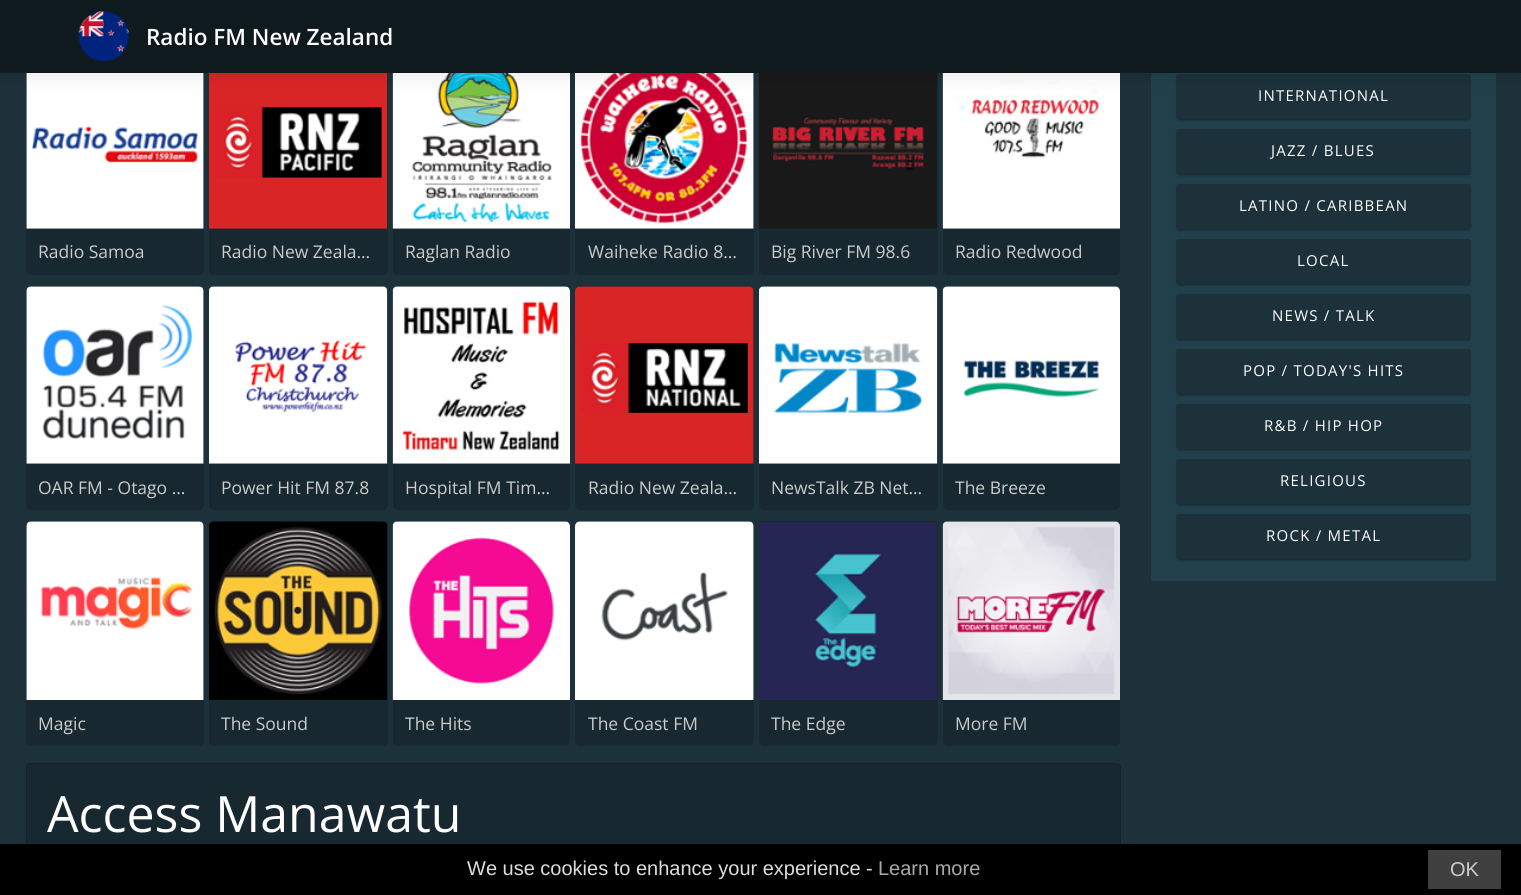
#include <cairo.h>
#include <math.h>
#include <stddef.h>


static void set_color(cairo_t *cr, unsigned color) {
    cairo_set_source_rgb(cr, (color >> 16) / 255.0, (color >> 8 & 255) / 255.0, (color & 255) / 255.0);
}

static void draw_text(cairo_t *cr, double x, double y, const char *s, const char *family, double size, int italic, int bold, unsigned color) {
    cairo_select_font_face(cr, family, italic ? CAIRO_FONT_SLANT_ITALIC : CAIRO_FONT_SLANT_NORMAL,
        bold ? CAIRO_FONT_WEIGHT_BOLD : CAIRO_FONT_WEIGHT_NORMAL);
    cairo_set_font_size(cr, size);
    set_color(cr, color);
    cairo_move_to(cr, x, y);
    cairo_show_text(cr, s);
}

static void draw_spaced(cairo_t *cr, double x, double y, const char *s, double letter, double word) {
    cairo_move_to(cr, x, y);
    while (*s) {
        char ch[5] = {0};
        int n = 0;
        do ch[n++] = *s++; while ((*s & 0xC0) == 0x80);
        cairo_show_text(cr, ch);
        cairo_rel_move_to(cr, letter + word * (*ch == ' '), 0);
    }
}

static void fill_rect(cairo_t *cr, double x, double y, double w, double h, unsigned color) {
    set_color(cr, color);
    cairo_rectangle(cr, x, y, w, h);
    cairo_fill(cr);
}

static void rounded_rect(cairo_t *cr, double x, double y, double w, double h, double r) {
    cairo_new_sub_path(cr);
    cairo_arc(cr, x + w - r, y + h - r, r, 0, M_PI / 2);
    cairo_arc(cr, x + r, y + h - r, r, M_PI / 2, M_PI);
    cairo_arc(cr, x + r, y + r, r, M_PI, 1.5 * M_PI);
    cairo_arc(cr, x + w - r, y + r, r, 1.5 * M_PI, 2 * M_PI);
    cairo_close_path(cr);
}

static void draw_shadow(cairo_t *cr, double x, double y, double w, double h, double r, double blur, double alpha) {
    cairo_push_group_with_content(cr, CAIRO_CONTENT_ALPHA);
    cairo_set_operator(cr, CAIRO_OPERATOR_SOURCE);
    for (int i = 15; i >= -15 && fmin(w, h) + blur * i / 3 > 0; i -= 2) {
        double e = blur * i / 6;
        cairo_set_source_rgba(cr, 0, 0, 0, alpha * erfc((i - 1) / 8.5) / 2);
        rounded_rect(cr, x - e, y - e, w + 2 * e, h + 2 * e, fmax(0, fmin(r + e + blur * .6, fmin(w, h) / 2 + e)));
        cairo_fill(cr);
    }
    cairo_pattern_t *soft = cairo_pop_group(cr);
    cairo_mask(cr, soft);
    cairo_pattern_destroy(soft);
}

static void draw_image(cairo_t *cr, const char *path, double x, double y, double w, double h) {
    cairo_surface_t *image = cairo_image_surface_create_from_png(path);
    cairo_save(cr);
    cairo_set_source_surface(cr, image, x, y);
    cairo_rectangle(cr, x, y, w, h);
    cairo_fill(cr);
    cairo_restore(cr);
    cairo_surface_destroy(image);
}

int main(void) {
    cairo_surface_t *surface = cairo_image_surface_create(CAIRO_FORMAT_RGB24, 1521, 895);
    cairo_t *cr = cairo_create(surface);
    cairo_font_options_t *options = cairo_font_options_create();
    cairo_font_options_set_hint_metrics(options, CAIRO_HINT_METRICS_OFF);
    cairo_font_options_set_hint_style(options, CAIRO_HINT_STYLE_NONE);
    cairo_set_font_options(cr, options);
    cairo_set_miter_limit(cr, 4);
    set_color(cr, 0x1C313A);
    cairo_paint(cr);
    set_color(cr, 0x172830);
    rounded_rect(cr, 26, 50, 178, 225, 5);
    cairo_fill(cr);
    draw_image(cr, "assets/img2.png", 26, 73, 178, 156);
    rounded_rect(cr, 209, 50, 179, 225, 5);
    cairo_fill(cr);
    draw_image(cr, "assets/img3.png", 209, 73, 179, 156);
    rounded_rect(cr, 393, 50, 177, 225, 5);
    cairo_fill(cr);
    draw_image(cr, "assets/img4.png", 392, 73, 178, 156);
    rounded_rect(cr, 575, 50, 179, 225, 5);
    cairo_fill(cr);
    draw_image(cr, "assets/img5.png", 575, 73, 179, 156);
    rounded_rect(cr, 759, 50, 179, 225, 5);
    cairo_fill(cr);
    draw_image(cr, "assets/img6.png", 759, 73, 178, 156);
    rounded_rect(cr, 943, 50, 177, 225, 5);
    cairo_fill(cr);
    draw_image(cr, "assets/img7.png", 942, 73, 178, 156);
    fill_rect(cr, 1151, 73, 345, 508, 0x21404B);
    set_color(cr, 0x000000);
    draw_shadow(cr, 1176, 76, 295, 45, 2.5, 1, 0.14);
    draw_shadow(cr, 1179, 80, 290, 40, 0, 0.5, 0.2);
    set_color(cr, 0x1C313A);
    rounded_rect(cr, 1176, 74, 295, 45, 2.5);
    cairo_fill(cr);
    set_color(cr, 0x000000);
    draw_shadow(cr, 0, 3, 1521, 72, 0, 9.5, 0.1);
    fill_rect(cr, 0, 0, 1521, 73, 0x0F1A1E);
    draw_image(cr, "assets/img1.png", 78, 11, 51, 51);
    draw_text(cr, 146, 45, "Radio FM New Zealand", "Open Sans SemiBold", 22.5, 0, 0, 0xFFFFFF);
    draw_text(cr, 38, 258, "Radio Samoa", "Open Sans", 17.5, 0, 0, 0xCCCCCC);
    draw_text(cr, 221, 258, "Radio New Zeala…", "Open Sans", 17.5, 0, 0, 0xCCCCCC);
    draw_text(cr, 405, 258, "Raglan Radio", "Open Sans", 17.5, 0, 0, 0xCCCCCC);
    draw_text(cr, 588, 258, "Waiheke Radio 8…", "Open Sans", 17.5, 0, 0, 0xCCCCCC);
    draw_text(cr, 771, 258, "Big River FM 98.6", "Open Sans", 17.5, 0, 0, 0xCCCCCC);
    draw_text(cr, 955, 258, "Radio Redwood", "Open Sans", 17.5, 0, 0, 0xCCCCCC);
    set_color(cr, 0x172830);
    rounded_rect(cr, 26, 286, 178, 224, 5);
    cairo_fill(cr);
    draw_image(cr, "assets/img8.png", 26, 286, 178, 178);
    draw_text(cr, 38, 494, "OAR FM - Otago …", "Open Sans", 17.5, 0, 0, 0xCCCCCC);
    set_color(cr, 0x172830);
    rounded_rect(cr, 209, 286, 179, 224, 5);
    cairo_fill(cr);
    draw_image(cr, "assets/img9.png", 209, 286, 179, 178);
    draw_text(cr, 221, 494, "Power Hit FM 87.8", "Open Sans", 17.5, 0, 0, 0xCCCCCC);
    set_color(cr, 0x172830);
    rounded_rect(cr, 393, 286, 177, 224, 5);
    cairo_fill(cr);
    draw_image(cr, "assets/img10.png", 392, 286, 178, 178);
    draw_text(cr, 405, 494, "Hospital FM Tim…", "Open Sans", 17.5, 0, 0, 0xCCCCCC);
    set_color(cr, 0x172830);
    rounded_rect(cr, 575, 286, 179, 224, 5);
    cairo_fill(cr);
    draw_image(cr, "assets/img11.png", 575, 286, 179, 178);
    draw_text(cr, 588, 494, "Radio New Zeala…", "Open Sans", 17.5, 0, 0, 0xCCCCCC);
    set_color(cr, 0x172830);
    rounded_rect(cr, 759, 286, 179, 224, 5);
    cairo_fill(cr);
    draw_image(cr, "assets/img12.png", 759, 286, 179, 178);
    draw_text(cr, 771, 494, "NewsTalk ZB Net…", "Open Sans", 17.5, 0, 0, 0xCCCCCC);
    set_color(cr, 0x172830);
    rounded_rect(cr, 943, 286, 177, 224, 5);
    cairo_fill(cr);
    draw_image(cr, "assets/img13.png", 942, 286, 178, 178);
    draw_text(cr, 955, 494, "The Breeze", "Open Sans", 17.5, 0, 0, 0xCCCCCC);
    set_color(cr, 0x172830);
    rounded_rect(cr, 26, 521, 178, 225, 5);
    cairo_fill(cr);
    draw_image(cr, "assets/img14.png", 26, 521, 178, 179);
    draw_text(cr, 38, 730, "Magic", "Open Sans", 17.5, 0, 0, 0xCCCCCC);
    set_color(cr, 0x172830);
    rounded_rect(cr, 209, 521, 179, 225, 5);
    cairo_fill(cr);
    draw_image(cr, "assets/img15.png", 209, 521, 179, 179);
    draw_text(cr, 221, 730, "The Sound", "Open Sans", 17.5, 0, 0, 0xCCCCCC);
    set_color(cr, 0x172830);
    rounded_rect(cr, 393, 521, 177, 225, 5);
    cairo_fill(cr);
    draw_image(cr, "assets/img16.png", 392, 521, 178, 179);
    draw_text(cr, 405, 730, "The Hits", "Open Sans", 17.5, 0, 0, 0xCCCCCC);
    set_color(cr, 0x172830);
    rounded_rect(cr, 575, 521, 179, 225, 5);
    cairo_fill(cr);
    draw_image(cr, "assets/img17.png", 575, 521, 179, 179);
    draw_text(cr, 588, 730, "The Coast FM", "Open Sans", 17.5, 0, 0, 0xCCCCCC);
    set_color(cr, 0x172830);
    rounded_rect(cr, 759, 521, 179, 225, 5);
    cairo_fill(cr);
    draw_image(cr, "assets/img18.png", 759, 521, 179, 179);
    draw_text(cr, 771, 730, "The Edge", "Open Sans", 17.5, 0, 0, 0xCCCCCC);
    set_color(cr, 0x172830);
    rounded_rect(cr, 943, 521, 177, 225, 5);
    cairo_fill(cr);
    draw_image(cr, "assets/img19.png", 942, 521, 178, 179);
    draw_text(cr, 955, 730, "More FM", "Open Sans", 17.5, 0, 0, 0xCCCCCC);
    set_color(cr, 0x172830);
    rounded_rect(cr, 26, 763, 1095, 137, 5);
    cairo_fill(cr);
    rounded_rect(cr, 26.5, 763.5, 1094, 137, 4.5);
    cairo_set_source_rgba(cr, 0, 0, 0, 0.12);
    cairo_set_line_width(cr, 1);
    cairo_stroke(cr);
    draw_text(cr, 47, 832, "Access Manawatu", "Open Sans", 50, 0, 0, 0xFFFFFF);
    cairo_set_font_size(cr, 15);
    draw_spaced(cr, 1258, 101, "INTERNATIONAL", 1.25, 0);
    set_color(cr, 0x000000);
    draw_shadow(cr, 1176, 131, 295, 45, 2.5, 1, 0.14);
    draw_shadow(cr, 1179, 135, 290, 40, 0, 0.5, 0.2);
    set_color(cr, 0x1C313A);
    rounded_rect(cr, 1176, 129, 295, 45, 2.5);
    cairo_fill(cr);
    set_color(cr, 0xFFFFFF);
    draw_spaced(cr, 1271, 156, "JAZZ / BLUES", 1.25, 0);
    set_color(cr, 0x000000);
    draw_shadow(cr, 1176, 186, 295, 45, 2.5, 1, 0.14);
    draw_shadow(cr, 1179, 190, 290, 40, 0, 0.5, 0.2);
    set_color(cr, 0x1C313A);
    rounded_rect(cr, 1176, 184, 295, 45, 2.5);
    cairo_fill(cr);
    set_color(cr, 0xFFFFFF);
    draw_spaced(cr, 1239, 211, "LATINO / CARIBBEAN", 1.25, 0);
    set_color(cr, 0x000000);
    draw_shadow(cr, 1176, 241, 295, 45, 2.5, 1, 0.14);
    draw_shadow(cr, 1179, 245, 290, 40, 0, 0.5, 0.2);
    set_color(cr, 0x1C313A);
    rounded_rect(cr, 1176, 239, 295, 45, 2.5);
    cairo_fill(cr);
    set_color(cr, 0xFFFFFF);
    draw_spaced(cr, 1297, 266, "LOCAL", 1.25, 0);
    set_color(cr, 0x000000);
    draw_shadow(cr, 1176, 296, 295, 45, 2.5, 1, 0.14);
    draw_shadow(cr, 1179, 300, 290, 40, 0, 0.5, 0.2);
    set_color(cr, 0x1C313A);
    rounded_rect(cr, 1176, 294, 295, 45, 2.5);
    cairo_fill(cr);
    set_color(cr, 0xFFFFFF);
    draw_spaced(cr, 1272, 321, "NEWS / TALK", 1.25, 0);
    set_color(cr, 0x000000);
    draw_shadow(cr, 1176, 351, 295, 45, 2.5, 1, 0.14);
    draw_shadow(cr, 1179, 355, 290, 40, 0, 0.5, 0.2);
    set_color(cr, 0x1C313A);
    rounded_rect(cr, 1176, 349, 295, 45, 2.5);
    cairo_fill(cr);
    set_color(cr, 0xFFFFFF);
    draw_spaced(cr, 1243, 376, "POP / TODAY'S HITS", 1.25, 0);
    set_color(cr, 0x000000);
    draw_shadow(cr, 1176, 406, 295, 45, 2.5, 1, 0.14);
    draw_shadow(cr, 1179, 410, 290, 40, 0, 0.5, 0.2);
    set_color(cr, 0x1C313A);
    rounded_rect(cr, 1176, 404, 295, 45, 2.5);
    cairo_fill(cr);
    set_color(cr, 0xFFFFFF);
    draw_spaced(cr, 1264, 431, "R&B / HIP HOP", 1.25, 0);
    set_color(cr, 0x000000);
    draw_shadow(cr, 1176, 461, 295, 45, 2.5, 1, 0.14);
    draw_shadow(cr, 1179, 465, 290, 40, 0, 0.5, 0.2);
    set_color(cr, 0x1C313A);
    rounded_rect(cr, 1176, 459, 295, 45, 2.5);
    cairo_fill(cr);
    set_color(cr, 0xFFFFFF);
    draw_spaced(cr, 1280, 486, "RELIGIOUS", 1.25, 0);
    set_color(cr, 0x000000);
    draw_shadow(cr, 1176, 516, 295, 45, 2.5, 1, 0.14);
    draw_shadow(cr, 1179, 520, 290, 40, 0, 0.5, 0.2);
    set_color(cr, 0x1C313A);
    rounded_rect(cr, 1176, 514, 295, 45, 2.5);
    cairo_fill(cr);
    set_color(cr, 0xFFFFFF);
    draw_spaced(cr, 1266, 541, "ROCK / METAL", 1.25, 0);
    fill_rect(cr, 0, 844, 1521, 51, 0x000000);
    draw_text(cr, 467, 875, "We use cookies to enhance your experience -", "Liberation Sans", 20, 0, 0, 0xDDDDDD);
    draw_text(cr, 878, 875, "Learn more", "Liberation Sans", 20, 0, 0, 0xAAAAAA);
    fill_rect(cr, 1428, 850, 73, 39, 0x404040);
    draw_text(cr, 1450, 876, "OK", "Liberation Sans", 20, 0, 0, 0xCCCCCC);
    cairo_surface_write_to_png(surface, "output.png");
    cairo_font_options_destroy(options);
    cairo_destroy(cr);
    cairo_surface_destroy(surface);
    return 0;
}
